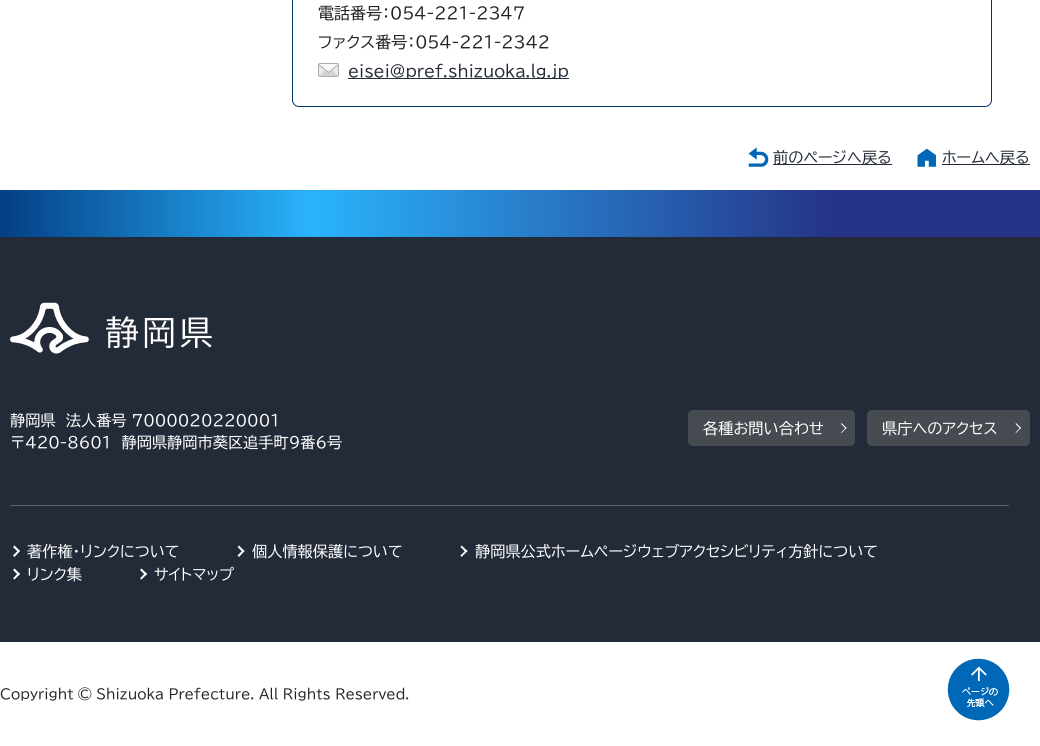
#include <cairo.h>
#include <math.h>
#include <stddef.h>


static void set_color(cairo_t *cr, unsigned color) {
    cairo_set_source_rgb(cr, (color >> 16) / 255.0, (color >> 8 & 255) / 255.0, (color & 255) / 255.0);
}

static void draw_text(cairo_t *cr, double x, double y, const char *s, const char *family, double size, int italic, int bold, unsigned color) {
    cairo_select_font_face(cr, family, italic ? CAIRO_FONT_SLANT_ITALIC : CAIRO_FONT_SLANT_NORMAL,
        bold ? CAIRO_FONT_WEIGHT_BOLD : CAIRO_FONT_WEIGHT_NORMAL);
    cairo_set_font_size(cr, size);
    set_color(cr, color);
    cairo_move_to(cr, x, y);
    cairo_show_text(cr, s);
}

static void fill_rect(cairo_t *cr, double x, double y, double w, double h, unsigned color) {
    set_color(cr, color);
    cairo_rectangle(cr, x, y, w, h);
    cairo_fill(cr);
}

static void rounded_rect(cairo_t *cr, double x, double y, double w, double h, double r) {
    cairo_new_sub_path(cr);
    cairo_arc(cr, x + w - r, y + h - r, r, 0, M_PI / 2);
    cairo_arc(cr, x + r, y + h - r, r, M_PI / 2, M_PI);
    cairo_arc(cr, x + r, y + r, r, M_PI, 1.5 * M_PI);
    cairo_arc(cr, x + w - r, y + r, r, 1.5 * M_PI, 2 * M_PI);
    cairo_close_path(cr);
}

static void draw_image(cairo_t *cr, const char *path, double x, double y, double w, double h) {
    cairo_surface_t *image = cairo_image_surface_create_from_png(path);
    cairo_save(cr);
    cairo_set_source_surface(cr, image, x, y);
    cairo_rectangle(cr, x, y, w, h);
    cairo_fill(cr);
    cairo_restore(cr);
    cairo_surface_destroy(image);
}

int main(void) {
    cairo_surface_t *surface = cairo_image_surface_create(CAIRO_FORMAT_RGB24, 1040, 746);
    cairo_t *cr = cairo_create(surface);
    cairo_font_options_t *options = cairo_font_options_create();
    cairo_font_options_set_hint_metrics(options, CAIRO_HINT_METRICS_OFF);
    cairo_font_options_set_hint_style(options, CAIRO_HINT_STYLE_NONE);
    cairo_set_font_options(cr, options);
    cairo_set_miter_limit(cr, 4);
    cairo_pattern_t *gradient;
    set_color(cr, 0xFFFFFF);
    cairo_paint(cr);
    rounded_rect(cr, 292.5, -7.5, 699, 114, 6.5);
    set_color(cr, 0x033570);
    cairo_set_line_width(cr, 1);
    cairo_stroke(cr);
    draw_text(cr, 318, 19, "電話番号：054-221-2347", "BIZ UDPGothic", 16, 0, 0, 0x222222);
    draw_text(cr, 318, 48, "ファクス番号：054-221-2342", "BIZ UDPGothic", 16, 0, 0, 0x222222);
    draw_image(cr, "assets/img1.png", 318, 63, 21, 14);
    fill_rect(cr, 348, 78, 221, 1, 0x232B39);
    draw_text(cr, 348, 77, "eisei@pref.shizuoka.lg.jp", "BIZ UDPGothic", 16, 0, 0, 0x232B39);
    draw_image(cr, "assets/img2.png", 748, 147, 21, 20);
    fill_rect(cr, 773, 164, 119, 1, 0x232B39);
    draw_text(cr, 773, 163, "前のページへ戻る", "BIZ UDPGothic", 15.2, 0, 0, 0x232B39);
    draw_image(cr, "assets/img3.png", 917, 148, 19, 19);
    fill_rect(cr, 942, 164, 88, 1, 0x232B39);
    draw_text(cr, 942, 163, "ホームへ戻る", "BIZ UDPGothic", 15.2, 0, 0, 0x232B39);
    draw_image(cr, "assets/img4.png", 947, 658, 63, 63);
    gradient = cairo_pattern_create_linear(0, 214, 1040, 213);
    cairo_pattern_add_color_stop_rgba(gradient, 0, 0.012, 0.247, 0.522, 1);
    cairo_pattern_add_color_stop_rgba(gradient, 0.3, 0.165, 0.702, 0.988, 1);
    cairo_pattern_add_color_stop_rgba(gradient, 0.8, 0.145, 0.204, 0.529, 1);
    cairo_set_source(cr, gradient);
    cairo_pattern_destroy(gradient);
    cairo_rectangle(cr, 0, 190, 1040, 47);
    cairo_fill(cr);
    fill_rect(cr, 0, 237, 1040, 405, 0x232B39);
    draw_image(cr, "assets/img5.png", 10, 302, 202, 52);
    draw_text(cr, 10, 426, "静岡県　法人番号 7000020220001", "BIZ UDPGothic", 15.2, 0, 0, 0xFFFFFF);
    draw_text(cr, 10, 448, "〒420-8601　静岡県静岡市葵区追手町9番6号", "BIZ UDPGothic", 15.2, 0, 0, 0xFFFFFF);
    set_color(cr, 0x464B51);
    rounded_rect(cr, 688, 410, 167, 36, 5);
    cairo_fill(cr);
    draw_text(cr, 703, 434, "各種お問い合わせ", "BIZ UDPGothic", 15.2, 0, 0, 0xFFFFFF);
    cairo_new_path(cr);
    cairo_move_to(cr, 846.5, 428);
    cairo_line_to(cr, 841.5, 433);
    cairo_line_to(cr, 841, 432.5);
    cairo_line_to(cr, 846, 427.5);
    cairo_close_path(cr);
    cairo_fill(cr);
    cairo_new_path(cr);
    cairo_move_to(cr, 846.5, 428);
    cairo_line_to(cr, 846, 429);
    cairo_line_to(cr, 841, 424);
    cairo_line_to(cr, 841.5, 423);
    cairo_close_path(cr);
    cairo_fill(cr);
    set_color(cr, 0x464B51);
    rounded_rect(cr, 867, 410, 163, 36, 5);
    cairo_fill(cr);
    draw_text(cr, 882, 434, "県庁へのアクセス", "BIZ UDPGothic", 15.2, 0, 0, 0xFFFFFF);
    cairo_new_path(cr);
    cairo_move_to(cr, 1021, 428);
    cairo_line_to(cr, 1016, 433);
    cairo_line_to(cr, 1015.5, 432.5);
    cairo_line_to(cr, 1020.5, 427.5);
    cairo_close_path(cr);
    cairo_fill(cr);
    cairo_new_path(cr);
    cairo_move_to(cr, 1021, 428);
    cairo_line_to(cr, 1020.5, 429);
    cairo_line_to(cr, 1015.5, 424);
    cairo_line_to(cr, 1016, 423);
    cairo_close_path(cr);
    cairo_fill(cr);
    fill_rect(cr, 10, 505, 999, 1, 0x5B6066);
    set_color(cr, 0xFFFFFF);
    cairo_new_path(cr);
    cairo_move_to(cr, 20, 551);
    cairo_line_to(cr, 14.5, 557);
    cairo_line_to(cr, 13, 555.5);
    cairo_line_to(cr, 18.5, 550);
    cairo_close_path(cr);
    cairo_fill(cr);
    cairo_new_path(cr);
    cairo_move_to(cr, 20, 551);
    cairo_line_to(cr, 18.5, 552.5);
    cairo_line_to(cr, 13, 547);
    cairo_line_to(cr, 14.5, 545.5);
    cairo_close_path(cr);
    cairo_fill(cr);
    draw_text(cr, 27, 557, "著作権・リンクについて", "BIZ UDPGothic", 15.2, 0, 0, 0xFFFFFF);
    cairo_new_path(cr);
    cairo_move_to(cr, 244.5, 551);
    cairo_line_to(cr, 239, 557);
    cairo_line_to(cr, 237.5, 555.5);
    cairo_line_to(cr, 243, 550);
    cairo_close_path(cr);
    cairo_fill(cr);
    cairo_new_path(cr);
    cairo_move_to(cr, 244.5, 551);
    cairo_line_to(cr, 243, 552.5);
    cairo_line_to(cr, 237.5, 547);
    cairo_line_to(cr, 239, 545.5);
    cairo_close_path(cr);
    cairo_fill(cr);
    draw_text(cr, 252, 557, "個人情報保護について", "BIZ UDPGothic", 15.2, 0, 0, 0xFFFFFF);
    cairo_new_path(cr);
    cairo_move_to(cr, 467.5, 551);
    cairo_line_to(cr, 461.5, 557);
    cairo_line_to(cr, 460.5, 555.5);
    cairo_line_to(cr, 466, 550);
    cairo_close_path(cr);
    cairo_fill(cr);
    cairo_new_path(cr);
    cairo_move_to(cr, 467.5, 551);
    cairo_line_to(cr, 466, 552.5);
    cairo_line_to(cr, 460.5, 547);
    cairo_line_to(cr, 461.5, 545.5);
    cairo_close_path(cr);
    cairo_fill(cr);
    draw_text(cr, 475, 557, "静岡県公式ホームページウェブアクセシビリティ方針について", "BIZ UDPGothic", 15.2, 0, 0, 0xFFFFFF);
    cairo_new_path(cr);
    cairo_move_to(cr, 20, 574);
    cairo_line_to(cr, 14.5, 579.5);
    cairo_line_to(cr, 13, 578.5);
    cairo_line_to(cr, 18.5, 572.5);
    cairo_close_path(cr);
    cairo_fill(cr);
    cairo_new_path(cr);
    cairo_move_to(cr, 20, 574);
    cairo_line_to(cr, 18.5, 575.5);
    cairo_line_to(cr, 13, 570);
    cairo_line_to(cr, 14.5, 568.5);
    cairo_close_path(cr);
    cairo_fill(cr);
    draw_text(cr, 27, 580, "リンク集", "BIZ UDPGothic", 15.2, 0, 0, 0xFFFFFF);
    cairo_new_path(cr);
    cairo_move_to(cr, 147, 574);
    cairo_line_to(cr, 141.5, 579.5);
    cairo_line_to(cr, 140, 578.5);
    cairo_line_to(cr, 145.5, 572.5);
    cairo_close_path(cr);
    cairo_fill(cr);
    cairo_new_path(cr);
    cairo_move_to(cr, 147, 574);
    cairo_line_to(cr, 145.5, 575.5);
    cairo_line_to(cr, 140, 570);
    cairo_line_to(cr, 141.5, 568.5);
    cairo_close_path(cr);
    cairo_fill(cr);
    draw_text(cr, 154, 580, "サイトマップ", "BIZ UDPGothic", 15.2, 0, 0, 0xFFFFFF);
    draw_text(cr, 0, 699, "Copyright © Shizuoka Prefecture. All Rights Reserved.", "BIZ UDPGothic", 13.6, 0, 0, 0x222222);
    cairo_surface_write_to_png(surface, "output.png");
    cairo_font_options_destroy(options);
    cairo_destroy(cr);
    cairo_surface_destroy(surface);
    return 0;
}
